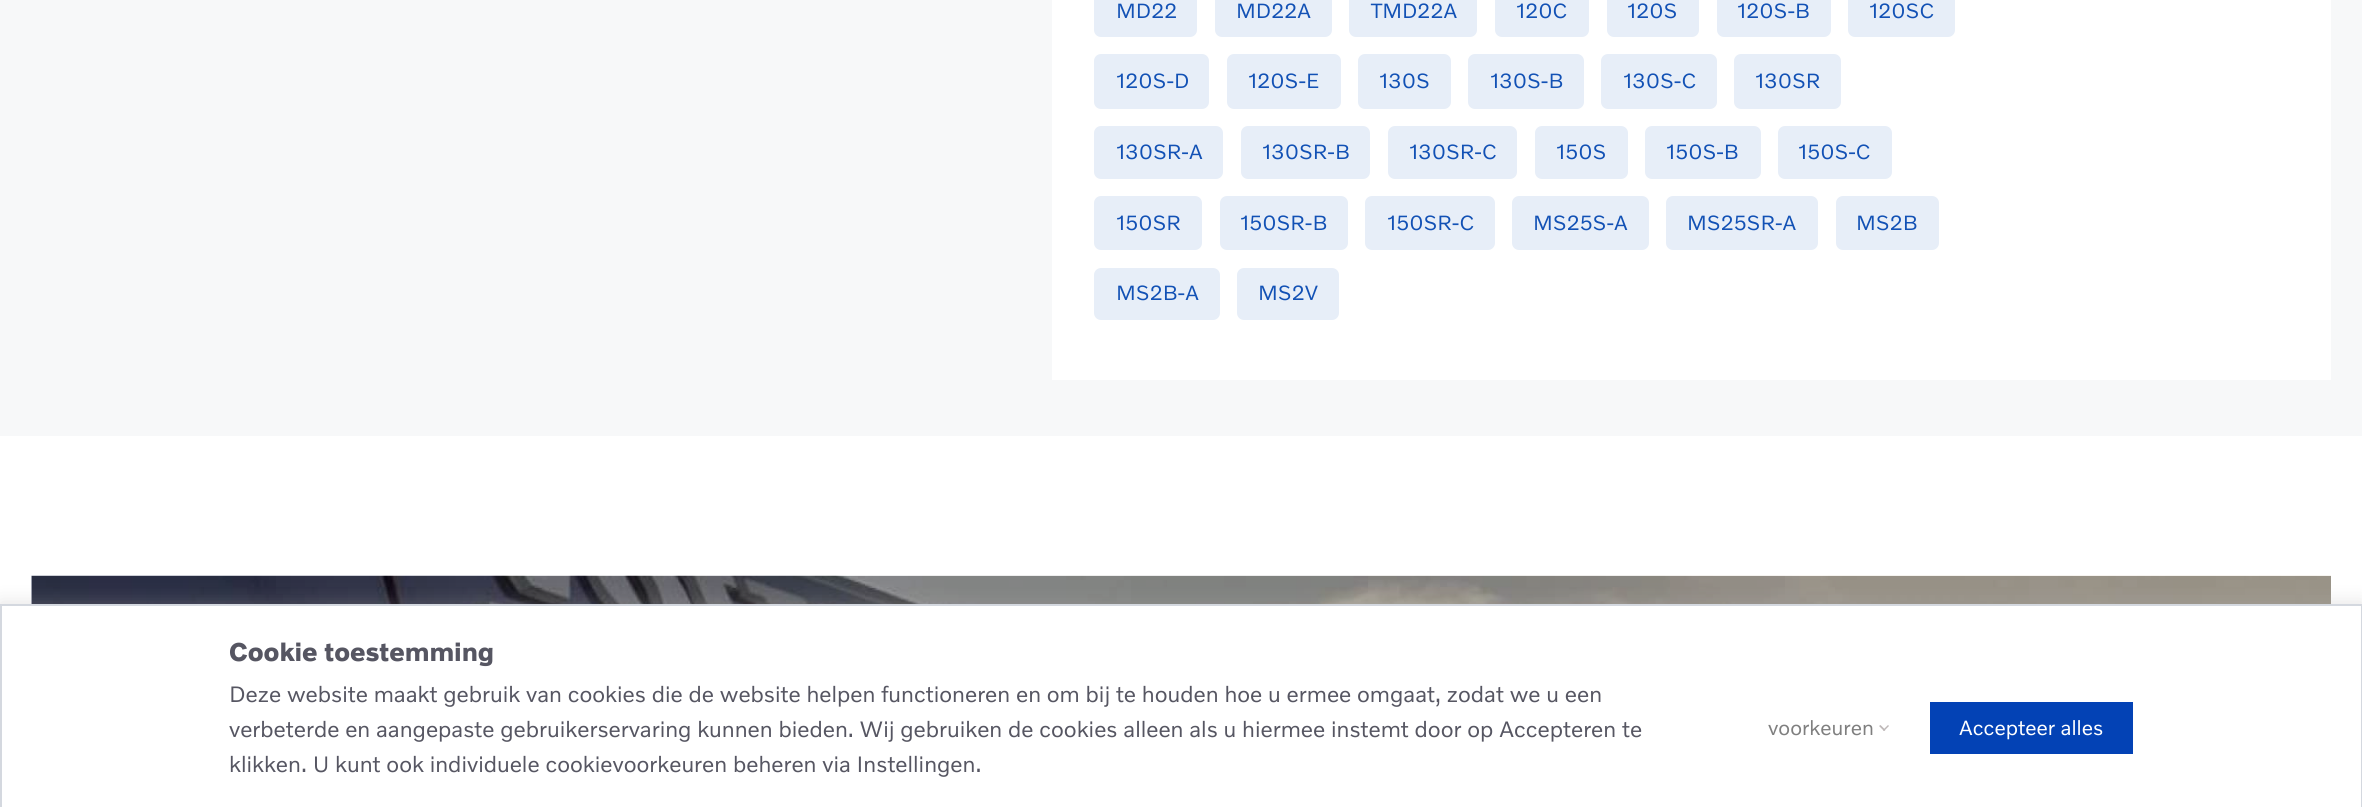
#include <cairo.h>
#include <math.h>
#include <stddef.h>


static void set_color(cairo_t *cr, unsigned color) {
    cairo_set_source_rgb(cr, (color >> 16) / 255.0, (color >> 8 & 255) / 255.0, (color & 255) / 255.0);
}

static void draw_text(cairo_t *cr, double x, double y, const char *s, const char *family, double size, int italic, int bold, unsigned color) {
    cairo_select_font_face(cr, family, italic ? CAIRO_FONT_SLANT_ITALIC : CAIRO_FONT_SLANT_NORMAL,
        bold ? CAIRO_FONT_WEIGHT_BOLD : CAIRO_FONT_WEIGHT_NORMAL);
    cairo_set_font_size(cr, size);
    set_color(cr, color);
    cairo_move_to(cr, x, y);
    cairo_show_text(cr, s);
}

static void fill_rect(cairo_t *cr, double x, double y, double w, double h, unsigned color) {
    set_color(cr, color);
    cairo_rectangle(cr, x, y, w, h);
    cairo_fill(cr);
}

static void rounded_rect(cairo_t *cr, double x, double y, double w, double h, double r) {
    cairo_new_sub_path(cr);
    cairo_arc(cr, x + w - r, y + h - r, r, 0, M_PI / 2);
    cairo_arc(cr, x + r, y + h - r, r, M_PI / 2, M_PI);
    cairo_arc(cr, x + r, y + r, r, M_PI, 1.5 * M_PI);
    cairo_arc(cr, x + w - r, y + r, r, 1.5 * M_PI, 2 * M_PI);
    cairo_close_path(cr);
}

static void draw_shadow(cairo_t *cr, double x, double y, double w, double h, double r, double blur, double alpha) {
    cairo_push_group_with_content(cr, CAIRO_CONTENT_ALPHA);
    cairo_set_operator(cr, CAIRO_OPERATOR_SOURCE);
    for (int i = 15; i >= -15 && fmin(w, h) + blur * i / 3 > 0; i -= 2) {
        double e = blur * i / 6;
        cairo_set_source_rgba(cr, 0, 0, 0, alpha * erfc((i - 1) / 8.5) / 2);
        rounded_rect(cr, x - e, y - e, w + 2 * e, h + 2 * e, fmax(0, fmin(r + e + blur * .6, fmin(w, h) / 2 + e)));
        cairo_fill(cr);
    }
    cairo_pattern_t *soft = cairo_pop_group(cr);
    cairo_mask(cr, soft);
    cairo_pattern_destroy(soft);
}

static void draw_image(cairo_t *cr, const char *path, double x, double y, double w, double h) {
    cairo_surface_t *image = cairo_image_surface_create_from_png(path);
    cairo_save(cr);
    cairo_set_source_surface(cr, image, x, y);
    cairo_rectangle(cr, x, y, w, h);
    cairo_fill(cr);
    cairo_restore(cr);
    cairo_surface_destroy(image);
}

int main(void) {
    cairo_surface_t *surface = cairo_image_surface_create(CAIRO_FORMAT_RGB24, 2362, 807);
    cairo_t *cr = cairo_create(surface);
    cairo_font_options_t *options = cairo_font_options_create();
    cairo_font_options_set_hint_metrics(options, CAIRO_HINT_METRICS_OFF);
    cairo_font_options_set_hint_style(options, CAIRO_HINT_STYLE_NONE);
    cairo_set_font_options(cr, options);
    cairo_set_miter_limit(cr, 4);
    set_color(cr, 0xFFFFFF);
    cairo_paint(cr);
    fill_rect(cr, 0, 0, 2362, 436, 0xF7F8F9);
    fill_rect(cr, 1052, 0, 1279, 380, 0xFFFFFF);
    set_color(cr, 0xE7EEF8);
    rounded_rect(cr, 1094, -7, 103, 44, 7);
    cairo_fill(cr);
    draw_text(cr, 1116, 18, "MD22", "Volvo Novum", 21, 0, 0, 0x1251B5);
    set_color(cr, 0xE7EEF8);
    rounded_rect(cr, 1215, -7, 117, 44, 7);
    cairo_fill(cr);
    draw_text(cr, 1236, 18, "MD22A", "Volvo Novum", 21, 0, 0, 0x1251B5);
    set_color(cr, 0xE7EEF8);
    rounded_rect(cr, 1349, -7, 128, 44, 7);
    cairo_fill(cr);
    draw_text(cr, 1371, 18, "TMD22A", "Volvo Novum", 21, 0, 0, 0x1251B5);
    set_color(cr, 0xE7EEF8);
    rounded_rect(cr, 1495, -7, 94, 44, 7);
    cairo_fill(cr);
    draw_text(cr, 1516, 18, "120C", "Volvo Novum", 21, 0, 0, 0x1251B5);
    set_color(cr, 0xE7EEF8);
    rounded_rect(cr, 1607, -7, 92, 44, 7);
    cairo_fill(cr);
    draw_text(cr, 1627, 18, "120S", "Volvo Novum", 21, 0, 0, 0x1251B5);
    set_color(cr, 0xE7EEF8);
    rounded_rect(cr, 1717, -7, 114, 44, 7);
    cairo_fill(cr);
    draw_text(cr, 1737, 18, "120S-B", "Volvo Novum", 21, 0, 0, 0x1251B5);
    set_color(cr, 0xE7EEF8);
    rounded_rect(cr, 1848, -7, 107, 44, 7);
    cairo_fill(cr);
    draw_text(cr, 1869, 18, "120SC", "Volvo Novum", 21, 0, 0, 0x1251B5);
    set_color(cr, 0xE7EEF8);
    rounded_rect(cr, 1094, 54, 115, 55, 7);
    cairo_fill(cr);
    draw_text(cr, 1116, 88, "120S-D", "Volvo Novum", 21, 0, 0, 0x1251B5);
    set_color(cr, 0xE7EEF8);
    rounded_rect(cr, 1227, 54, 114, 55, 7);
    cairo_fill(cr);
    draw_text(cr, 1248, 88, "120S-E", "Volvo Novum", 21, 0, 0, 0x1251B5);
    set_color(cr, 0xE7EEF8);
    rounded_rect(cr, 1358, 54, 93, 55, 7);
    cairo_fill(cr);
    draw_text(cr, 1379, 88, "130S", "Volvo Novum", 21, 0, 0, 0x1251B5);
    set_color(cr, 0xE7EEF8);
    rounded_rect(cr, 1468, 54, 116, 55, 7);
    cairo_fill(cr);
    draw_text(cr, 1490, 88, "130S-B", "Volvo Novum", 21, 0, 0, 0x1251B5);
    set_color(cr, 0xE7EEF8);
    rounded_rect(cr, 1601, 54, 116, 55, 7);
    cairo_fill(cr);
    draw_text(cr, 1623, 88, "130S-C", "Volvo Novum", 21, 0, 0, 0x1251B5);
    set_color(cr, 0xE7EEF8);
    rounded_rect(cr, 1734, 54, 107, 55, 7);
    cairo_fill(cr);
    draw_text(cr, 1755, 88, "130SR", "Volvo Novum", 21, 0, 0, 0x1251B5);
    set_color(cr, 0xE7EEF8);
    rounded_rect(cr, 1094, 126, 129, 53, 7);
    cairo_fill(cr);
    draw_text(cr, 1116, 159, "130SR-A", "Volvo Novum", 21, 0, 0, 0x1251B5);
    set_color(cr, 0xE7EEF8);
    rounded_rect(cr, 1241, 126, 129, 53, 7);
    cairo_fill(cr);
    draw_text(cr, 1262, 159, "130SR-B", "Volvo Novum", 21, 0, 0, 0x1251B5);
    set_color(cr, 0xE7EEF8);
    rounded_rect(cr, 1388, 126, 129, 53, 7);
    cairo_fill(cr);
    draw_text(cr, 1409, 159, "130SR-C", "Volvo Novum", 21, 0, 0, 0x1251B5);
    set_color(cr, 0xE7EEF8);
    rounded_rect(cr, 1535, 126, 93, 53, 7);
    cairo_fill(cr);
    draw_text(cr, 1556, 159, "150S", "Volvo Novum", 21, 0, 0, 0x1251B5);
    set_color(cr, 0xE7EEF8);
    rounded_rect(cr, 1645, 126, 116, 53, 7);
    cairo_fill(cr);
    draw_text(cr, 1666, 159, "150S-B", "Volvo Novum", 21, 0, 0, 0x1251B5);
    set_color(cr, 0xE7EEF8);
    rounded_rect(cr, 1778, 126, 114, 53, 7);
    cairo_fill(cr);
    draw_text(cr, 1798, 159, "150S-C", "Volvo Novum", 21, 0, 0, 0x1251B5);
    set_color(cr, 0xE7EEF8);
    rounded_rect(cr, 1094, 196, 108, 54, 7);
    cairo_fill(cr);
    draw_text(cr, 1116, 230, "150SR", "Volvo Novum", 21, 0, 0, 0x1251B5);
    set_color(cr, 0xE7EEF8);
    rounded_rect(cr, 1220, 196, 128, 54, 7);
    cairo_fill(cr);
    draw_text(cr, 1240, 230, "150SR-B", "Volvo Novum", 21, 0, 0, 0x1251B5);
    set_color(cr, 0xE7EEF8);
    rounded_rect(cr, 1365, 196, 130, 54, 7);
    cairo_fill(cr);
    draw_text(cr, 1387, 230, "150SR-C", "Volvo Novum", 21, 0, 0, 0x1251B5);
    set_color(cr, 0xE7EEF8);
    rounded_rect(cr, 1512, 196, 137, 54, 7);
    cairo_fill(cr);
    draw_text(cr, 1533, 230, "MS25S-A", "Volvo Novum", 21, 0, 0, 0x1251B5);
    set_color(cr, 0xE7EEF8);
    rounded_rect(cr, 1666, 196, 152, 54, 7);
    cairo_fill(cr);
    draw_text(cr, 1687, 230, "MS25SR-A", "Volvo Novum", 21, 0, 0, 0x1251B5);
    set_color(cr, 0xE7EEF8);
    rounded_rect(cr, 1836, 196, 103, 54, 7);
    cairo_fill(cr);
    draw_text(cr, 1856, 230, "MS2B", "Volvo Novum", 21, 0, 0, 0x1251B5);
    set_color(cr, 0xE7EEF8);
    rounded_rect(cr, 1094, 268, 126, 52, 7);
    cairo_fill(cr);
    draw_text(cr, 1116, 300, "MS2B-A", "Volvo Novum", 21, 0, 0, 0x1251B5);
    set_color(cr, 0xE7EEF8);
    rounded_rect(cr, 1237, 268, 102, 52, 7);
    cairo_fill(cr);
    draw_text(cr, 1258, 300, "MS2V", "Volvo Novum", 21, 0, 0, 0x1251B5);
    draw_image(cr, "assets/img1.png", 31, 575, 2300, 29);
    set_color(cr, 0xACABAB);
    draw_shadow(cr, 0, 602, 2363, 205, 0, 9, 0.3);
    set_color(cr, 0xFFFFFF);
    cairo_rectangle(cr, 1, 605, 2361, 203);
    cairo_fill_preserve(cr);
    set_color(cr, 0xD4D8DF);
    cairo_stroke(cr);
    draw_text(cr, 229, 661, "Cookie toestemming", "Volvo Novum", 26.25, 0, 1, 0x565662);
    draw_text(cr, 229, 702, "Deze website maakt gebruik van cookies die de website helpen functioneren en om bij te houden hoe u ermee omgaat, zodat we u een", "Volvo Novum", 22.75, 0, 0, 0x565662);
    draw_text(cr, 229, 737, "verbeterde en aangepaste gebruikerservaring kunnen bieden. Wij gebruiken de cookies alleen als u hiermee instemt door op Accepteren te", "Volvo Novum", 22.75, 0, 0, 0x565662);
    draw_text(cr, 229, 772, "klikken. U kunt ook individuele cookievoorkeuren beheren via Instellingen.", "Volvo Novum", 22.75, 0, 0, 0x565662);
    draw_text(cr, 1768, 735, "voorkeuren", "Volvo Novum", 21, 0, 0, 0x7F7F7F);
    set_color(cr, 0xBEB8B8);
    cairo_new_path(cr);
    cairo_move_to(cr, 1889, 726);
    cairo_line_to(cr, 1884, 731);
    cairo_line_to(cr, 1883, 730);
    cairo_line_to(cr, 1888, 725);
    cairo_close_path(cr);
    cairo_fill(cr);
    cairo_new_path(cr);
    cairo_move_to(cr, 1885.5, 730);
    cairo_line_to(cr, 1884, 731);
    cairo_line_to(cr, 1879, 726);
    cairo_line_to(cr, 1880.5, 725);
    cairo_close_path(cr);
    cairo_fill(cr);
    fill_rect(cr, 1930, 702, 203, 52, 0x0342B5);
    draw_text(cr, 1959, 735, "Accepteer alles", "Volvo Novum", 21, 0, 0, 0xFFFFFF);
    cairo_surface_write_to_png(surface, "output.png");
    cairo_font_options_destroy(options);
    cairo_destroy(cr);
    cairo_surface_destroy(surface);
    return 0;
}
